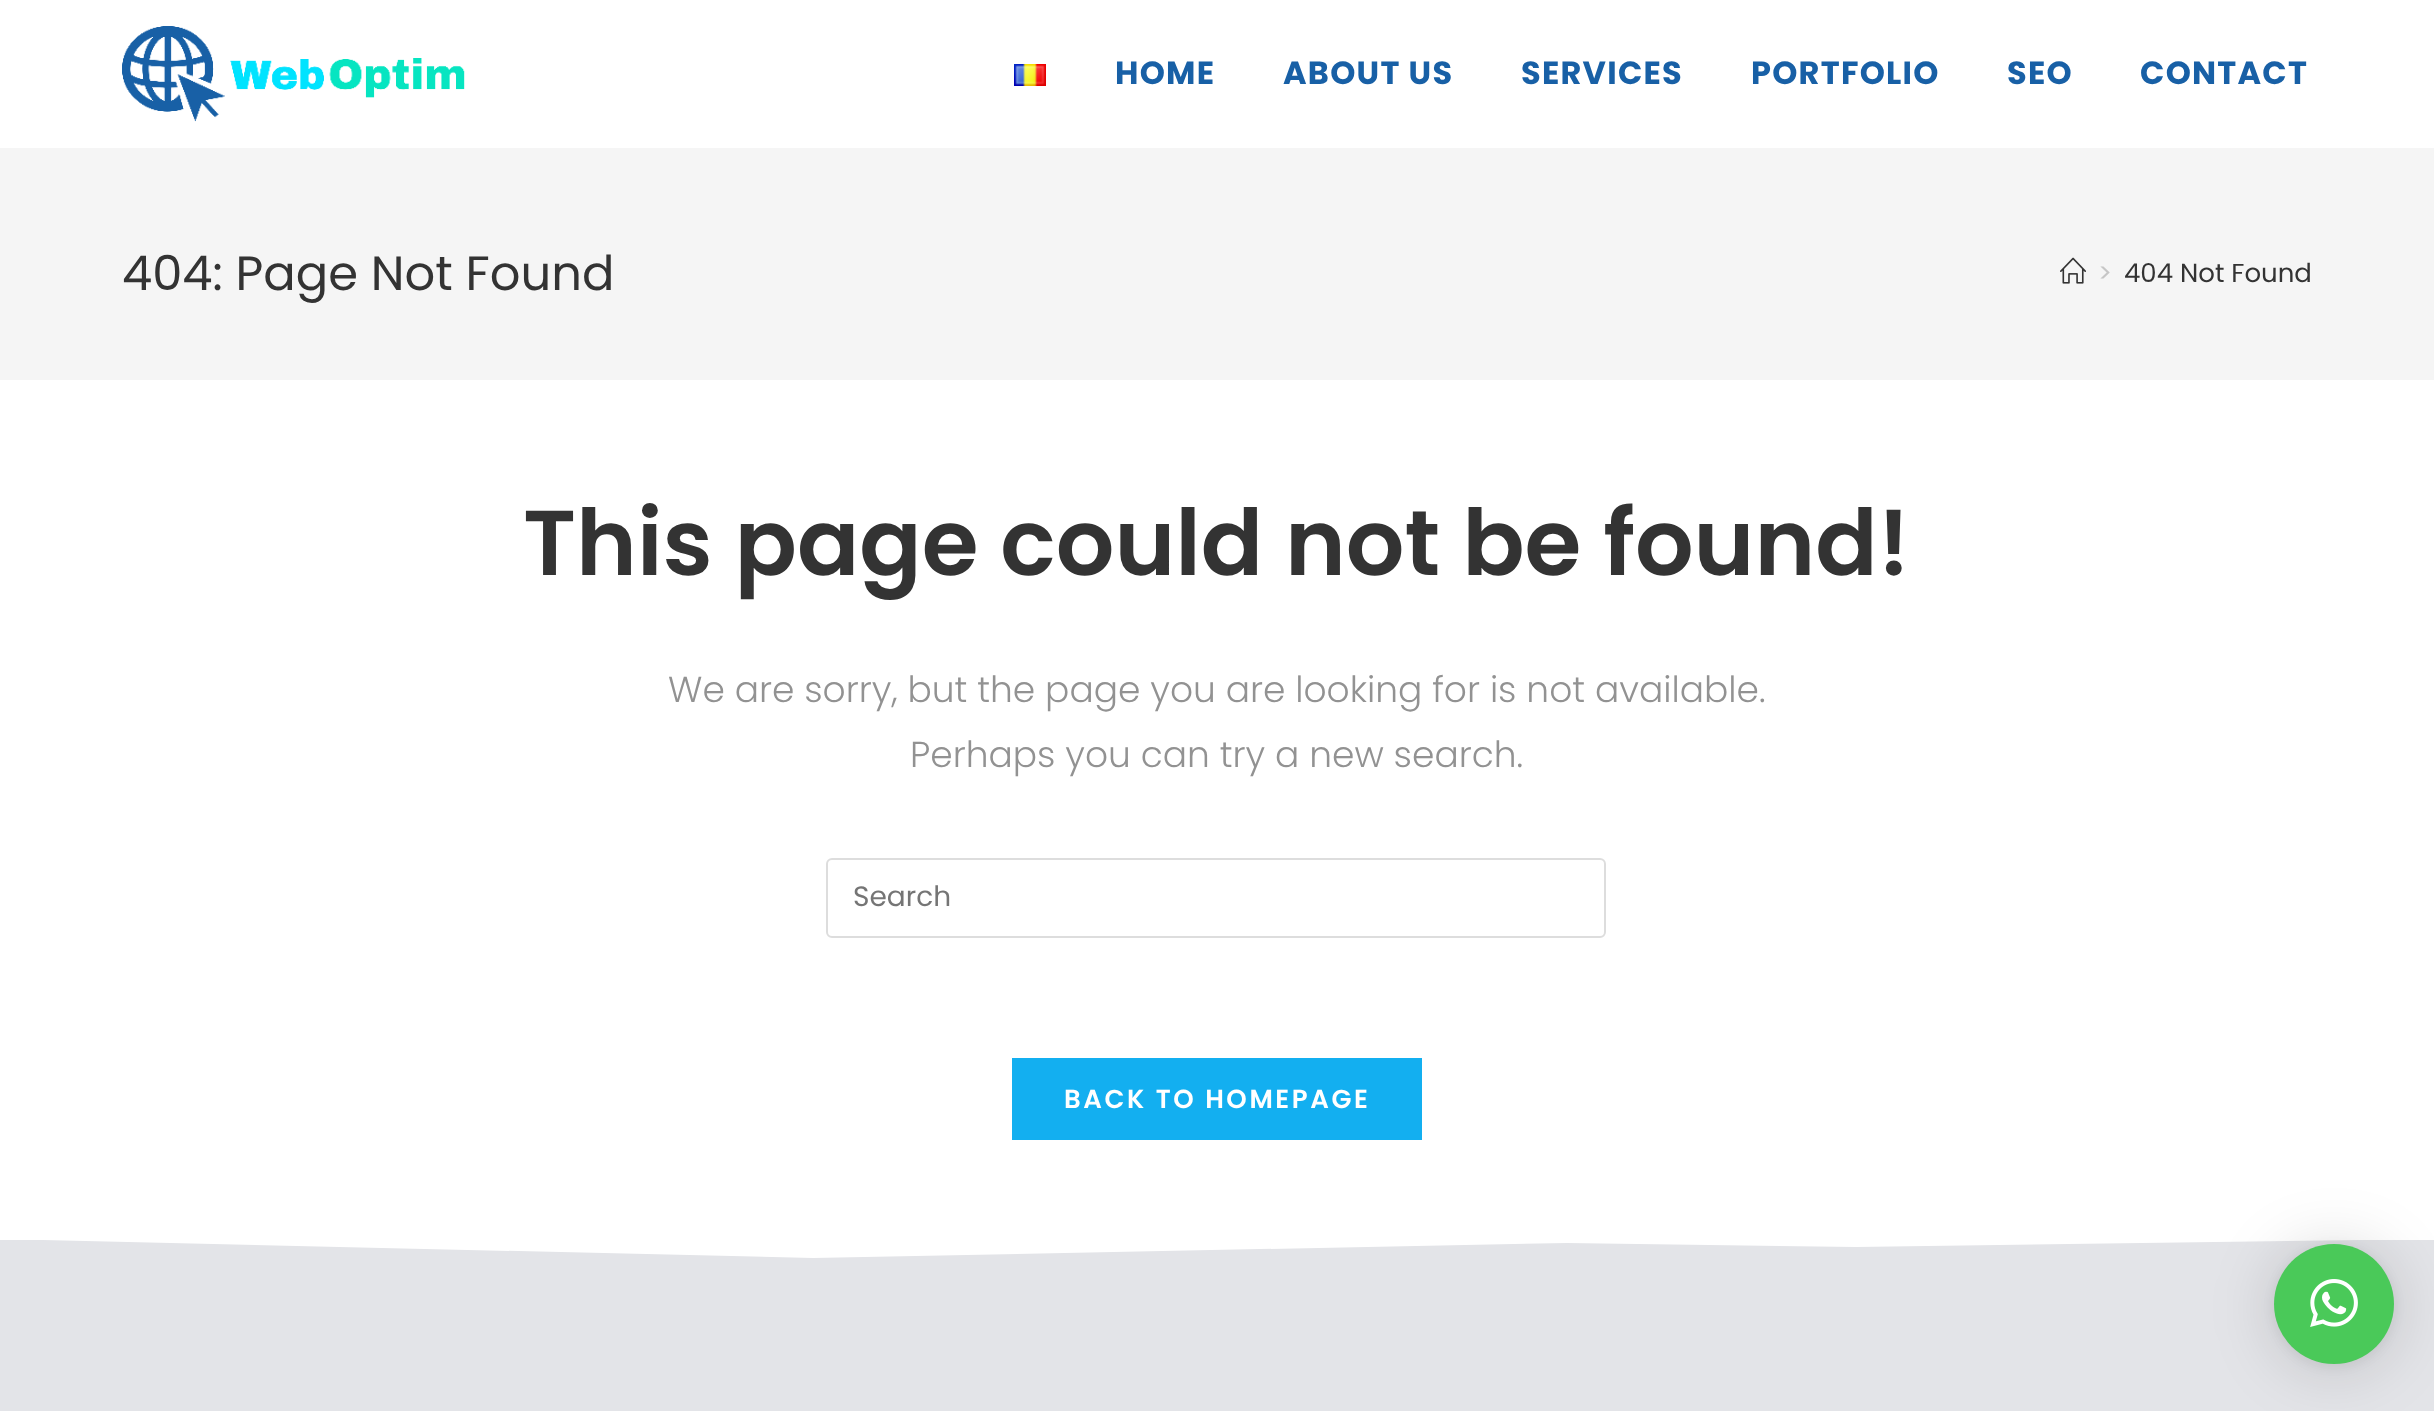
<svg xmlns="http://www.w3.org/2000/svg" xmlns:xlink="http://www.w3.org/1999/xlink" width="2434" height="1411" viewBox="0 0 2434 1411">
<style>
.cls-1{font:bold 32px Poppins;letter-spacing:1.25px;fill:#1860a6}
.cls-2{font:48px Poppins;fill:#333333}
.cls-3{font:26px Poppins;fill:#c6c6c6}
.cls-4{font:26px Poppins;fill:#333333}
.cls-5{font:600 92px Poppins;fill:#333333}
.cls-6{font:300 36px Poppins;fill:#929292}
.cls-7{font:28px Poppins;fill:#757575}
.cls-8{font:600 26px Poppins;letter-spacing:2.6px;fill:#ffffff}
</style>
<rect width="100%" height="100%" fill="#ffffff"/>
<image xlink:href="image0.png" x="122" y="26" width="343" height="96"/>
<image xlink:href="image1.png" x="1014" y="64" width="32" height="22"/>
<rect fill="#f5f5f5" x="0" y="148" width="2434" height="232"/>
<image xlink:href="image2.png" x="2060" y="257" width="26" height="27"/>
<rect fill="none" stroke="#dddddd" stroke-width="2" x="827" y="859" width="778" height="78" rx="5"/>
<rect fill="#13aff0" x="1012" y="1058" width="410" height="82"/>
<rect fill="#e3e4e8" x="0" y="1240" width="2434" height="171"/>
<path fill="#ffffff" d="M1856 1247L1567 1243L813 1258L0 1239V1238H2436V1239"/>
<rect fill="#000000" fill-opacity="0.16" filter="blur(32px)" x="2274" y="1248" width="120" height="120" rx="60"/>
<rect fill="#000000" fill-opacity="0.06" filter="blur(6px)" x="2274" y="1246" width="120" height="120" rx="60"/>
<circle fill="#4ac959" cx="2334" cy="1304" r="60"/>
<image xlink:href="image3.png" x="2310" y="1279" width="48" height="48"/>
<text class="cls-1" x="1115" y="84">HOME</text>
<text class="cls-1" x="1283" y="84">ABOUT US</text>
<text class="cls-1" x="1521" y="84">SERVICES</text>
<text class="cls-1" x="1751" y="84">PORTFOLIO</text>
<text class="cls-1" x="2007" y="84">SEO</text>
<text class="cls-1" x="2140" y="84">CONTACT</text>
<text class="cls-2" x="122" y="290">404: Page Not Found</text>
<text class="cls-3" x="2098" y="282">&gt;</text>
<text class="cls-4" x="2124" y="282">404 Not Found</text>
<text class="cls-5" x="523" y="575">This page could not be found!</text>
<text class="cls-6" x="668" y="702">We are sorry, but the page you are looking for is not available.</text>
<text class="cls-6" x="910" y="767">Perhaps you can try a new search.</text>
<text class="cls-7" x="853" y="906">Search</text>
<text class="cls-8" x="1064" y="1108">BACK TO HOMEPAGE</text>
</svg>
